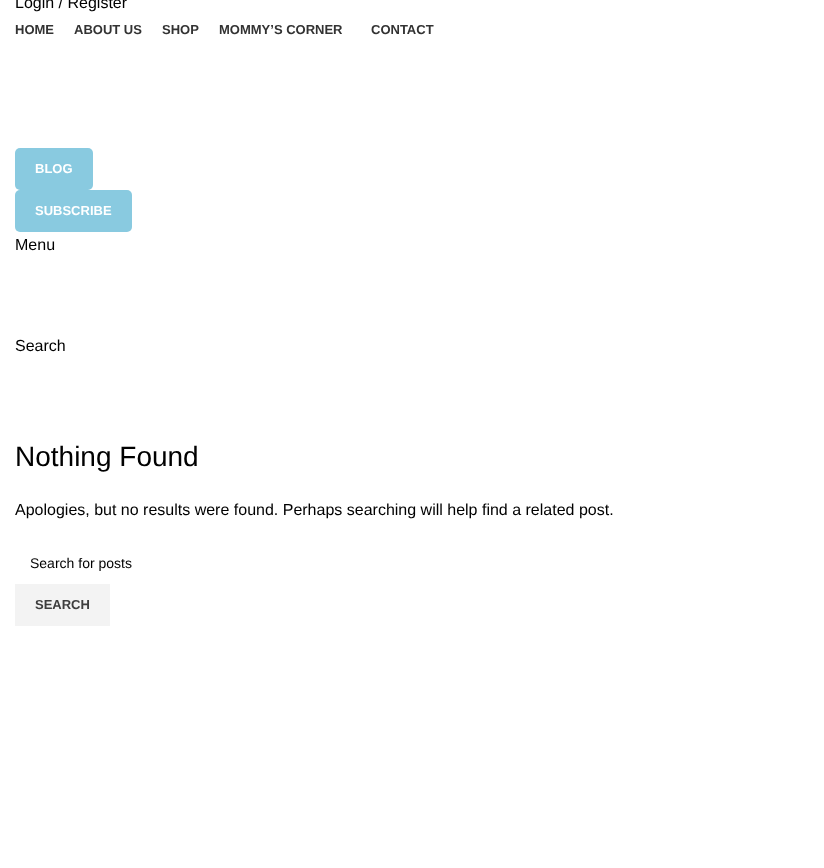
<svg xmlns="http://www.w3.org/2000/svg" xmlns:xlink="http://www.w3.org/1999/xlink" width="824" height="868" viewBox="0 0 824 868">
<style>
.cls-1{font:16px Liberation Sans;fill:#000000}
.cls-2{font:bold 13px Liberation Sans;fill:#333333}
.cls-3{font:bold 13px Liberation Sans;fill:#ffffff}
.cls-4{font:28px Liberation Sans;fill:#000000}
.cls-5{font:14px Liberation Sans;fill:#000000}
.cls-6{font:bold 13px Liberation Sans;fill:#3e3e3e}
</style>
<rect width="100%" height="100%" fill="#ffffff"/>
<rect fill="#89cae0" x="15" y="148" width="78" height="42" rx="5"/>
<rect fill="#89cae0" x="15" y="190" width="117" height="42" rx="5"/>
<rect fill="#f3f3f3" x="15" y="584" width="95" height="42"/>
<text class="cls-1" x="15" y="8">Login / Register</text>
<text class="cls-2" x="15" y="34">HOME</text>
<text class="cls-2" x="74" y="34">ABOUT US</text>
<text class="cls-2" x="162" y="34">SHOP</text>
<text class="cls-2" x="219" y="34">MOMMY’S CORNER</text>
<text class="cls-2" x="371" y="34">CONTACT</text>
<text class="cls-3" x="35" y="173">BLOG</text>
<text class="cls-3" x="35" y="215">SUBSCRIBE</text>
<text class="cls-1" x="15" y="250">Menu</text>
<text class="cls-1" x="15" y="351">Search</text>
<text class="cls-4" x="15" y="466">Nothing Found</text>
<text class="cls-1" x="15" y="515">Apologies, but no results were found. Perhaps searching will help find a related post.</text>
<text class="cls-5" x="30" y="568">Search for posts</text>
<text class="cls-6" x="35" y="609">SEARCH</text>
</svg>
